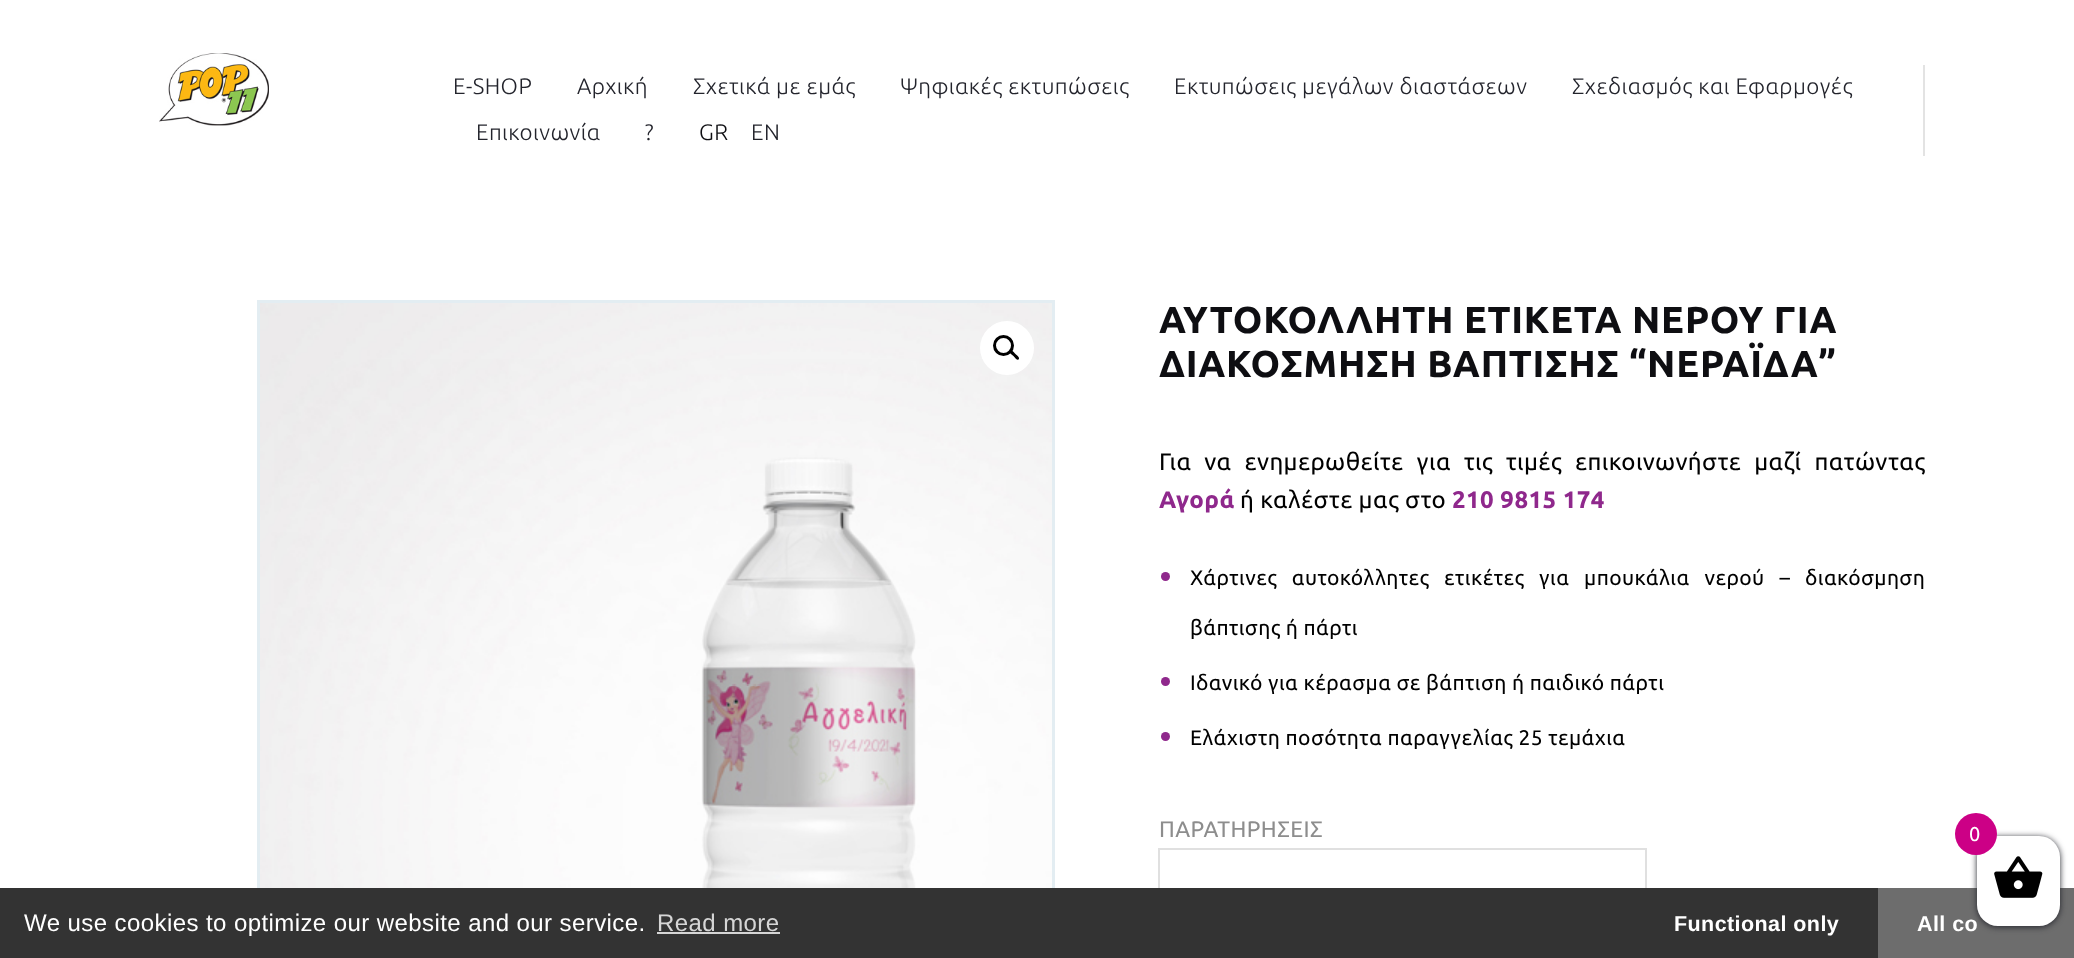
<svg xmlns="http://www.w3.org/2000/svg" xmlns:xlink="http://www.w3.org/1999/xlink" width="2074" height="958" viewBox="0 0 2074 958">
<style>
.cls-1{font:300 22.4px Ubuntu;letter-spacing:0.45px;fill:#23242c}
.cls-2{font:300 22.4px Ubuntu;letter-spacing:0.45px;fill:#0e0e12}
.cls-3{font:bold 37.5px Ubuntu;letter-spacing:0.75px;fill:#0e0e12}
.cls-4{font:24px Ubuntu;letter-spacing:0.42px;fill:#000000}
.cls-5{font:bold 24px Ubuntu;letter-spacing:0.42px;fill:#8f288c}
.cls-6{font:21px Ubuntu;letter-spacing:0.42px;fill:#000000}
.cls-7{font:22.5px Ubuntu;letter-spacing:0.42px;fill:#8d8d8d}
.cls-8{font:20px Ubuntu;letter-spacing:0.42px;fill:#ffffff}
.cls-9{font:24px Liberation Sans;letter-spacing:0.42px;fill:#ffffff}
.cls-10{font:24px Liberation Sans;letter-spacing:0.42px;fill:#d6d6d6}
.cls-11{font:bold 21.5px Liberation Sans;letter-spacing:0.42px;fill:#ffffff}
</style>
<rect width="100%" height="100%" fill="#ffffff"/>
<image xlink:href="image0.png" x="159" y="53" width="110" height="73"/>
<rect fill="#e3e3e3" x="1923" y="65" width="2" height="91"/>
<rect fill="none" stroke="#e3edf2" stroke-width="3" x="258.5" y="301.5" width="795" height="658"/>
<image xlink:href="image1.png" x="260" y="303" width="792" height="585"/>
<circle fill="#ffffff" cx="1007" cy="348" r="27"/>
<circle fill="none" stroke="#000000" stroke-width="3" cx="1003.5" cy="345.5" r="9"/>
<path fill="#000000" d="M1010 351C1012 349 1014.5 353 1015.5 354C1016.5 355 1020.5 357.5 1018.5 359.5C1017 361 1014.5 357 1013.5 356C1012.5 355.5 1008.5 352.5 1010 351Z"/>
<circle fill="#8f288c" cx="1165.5" cy="576.5" r="4.5"/>
<circle fill="#8f288c" cx="1165.5" cy="681.5" r="4.5"/>
<circle fill="#8f288c" cx="1165.5" cy="736.5" r="4.5"/>
<rect fill="none" stroke="#e0e0e0" stroke-width="2" x="1159" y="849" width="487" height="79"/>
<rect fill="#6d6d6d" x="1878" y="888" width="196" height="70"/>
<rect fill="#23242c" filter="blur(3px)" x="1977" y="837" width="83" height="90" rx="21"/>
<rect fill="#ffffff" x="1977" y="836" width="83" height="90" rx="21"/>
<circle fill="#cc0086" cx="1976" cy="834" r="21"/>
<image xlink:href="image2.png" x="1994" y="856" width="49" height="42"/>
<rect fill="#333333" x="0" y="888" width="1878" height="70"/>
<rect fill="#d6d6d6" x="657" y="932" width="123" height="2"/>
<text class="cls-1" x="453" y="94">E-SHOP</text>
<text class="cls-1" x="577" y="94">Αρχική</text>
<text class="cls-1" x="693" y="94">Σχετικά με εμάς</text>
<text class="cls-1" x="900" y="94">Ψηφιακές εκτυπώσεις</text>
<text class="cls-1" x="1174" y="94">Εκτυπώσεις μεγάλων διαστάσεων</text>
<text class="cls-1" x="1572" y="94">Σχεδιασμός και Εφαρμογές</text>
<text class="cls-1" x="476" y="140">Επικοινωνία</text>
<text class="cls-1" x="645" y="140">?</text>
<text class="cls-2" x="699" y="140">GR</text>
<text class="cls-1" x="751" y="140">EN</text>
<text class="cls-3"><tspan x="1159" y="333">ΑΥΤΟΚΟΛΛΗΤΗ ΕΤΙΚΕΤΑ ΝΕΡΟΥ ΓΙΑ</tspan><tspan x="1159" y="377">ΔΙΑΚΟΣΜΗΣΗ ΒΑΠΤΙΣΗΣ “ΝΕΡΑΪΔΑ”</tspan></text>
<text class="cls-4" x="1159" y="470" word-spacing="7">Για να ενημερωθείτε για τις τιμές επικοινωνήστε μαζί πατώντας</text>
<text class="cls-5" x="1159" y="508">Αγορά</text>
<text class="cls-4" x="1240" y="508">ή καλέστε μας στο</text>
<text class="cls-5" x="1452" y="508">210 9815 174</text>
<text class="cls-6" x="1190" y="585" word-spacing="9.5">Χάρτινες αυτοκόλλητες ετικέτες για μπουκάλια νερού – διακόσμηση</text>
<text class="cls-6" x="1190" y="635">βάπτισης ή πάρτι</text>
<text class="cls-6" x="1190" y="690">Ιδανικό για κέρασμα σε βάπτιση ή παιδικό πάρτι</text>
<text class="cls-6" x="1190" y="745">Ελάχιστη ποσότητα παραγγελίας 25 τεμάχια</text>
<text class="cls-7" x="1159" y="837">ΠΑΡΑΤΗΡΗΣΕΙΣ</text>
<text class="cls-8" x="1969" y="841">0</text>
<text class="cls-9" x="24" y="931">We use cookies to optimize our website and our service.</text>
<text class="cls-10" x="657" y="931">Read more</text>
<text class="cls-11" x="1674" y="931">Functional only</text>
<text class="cls-11" x="1917" y="931">All co</text>
</svg>
